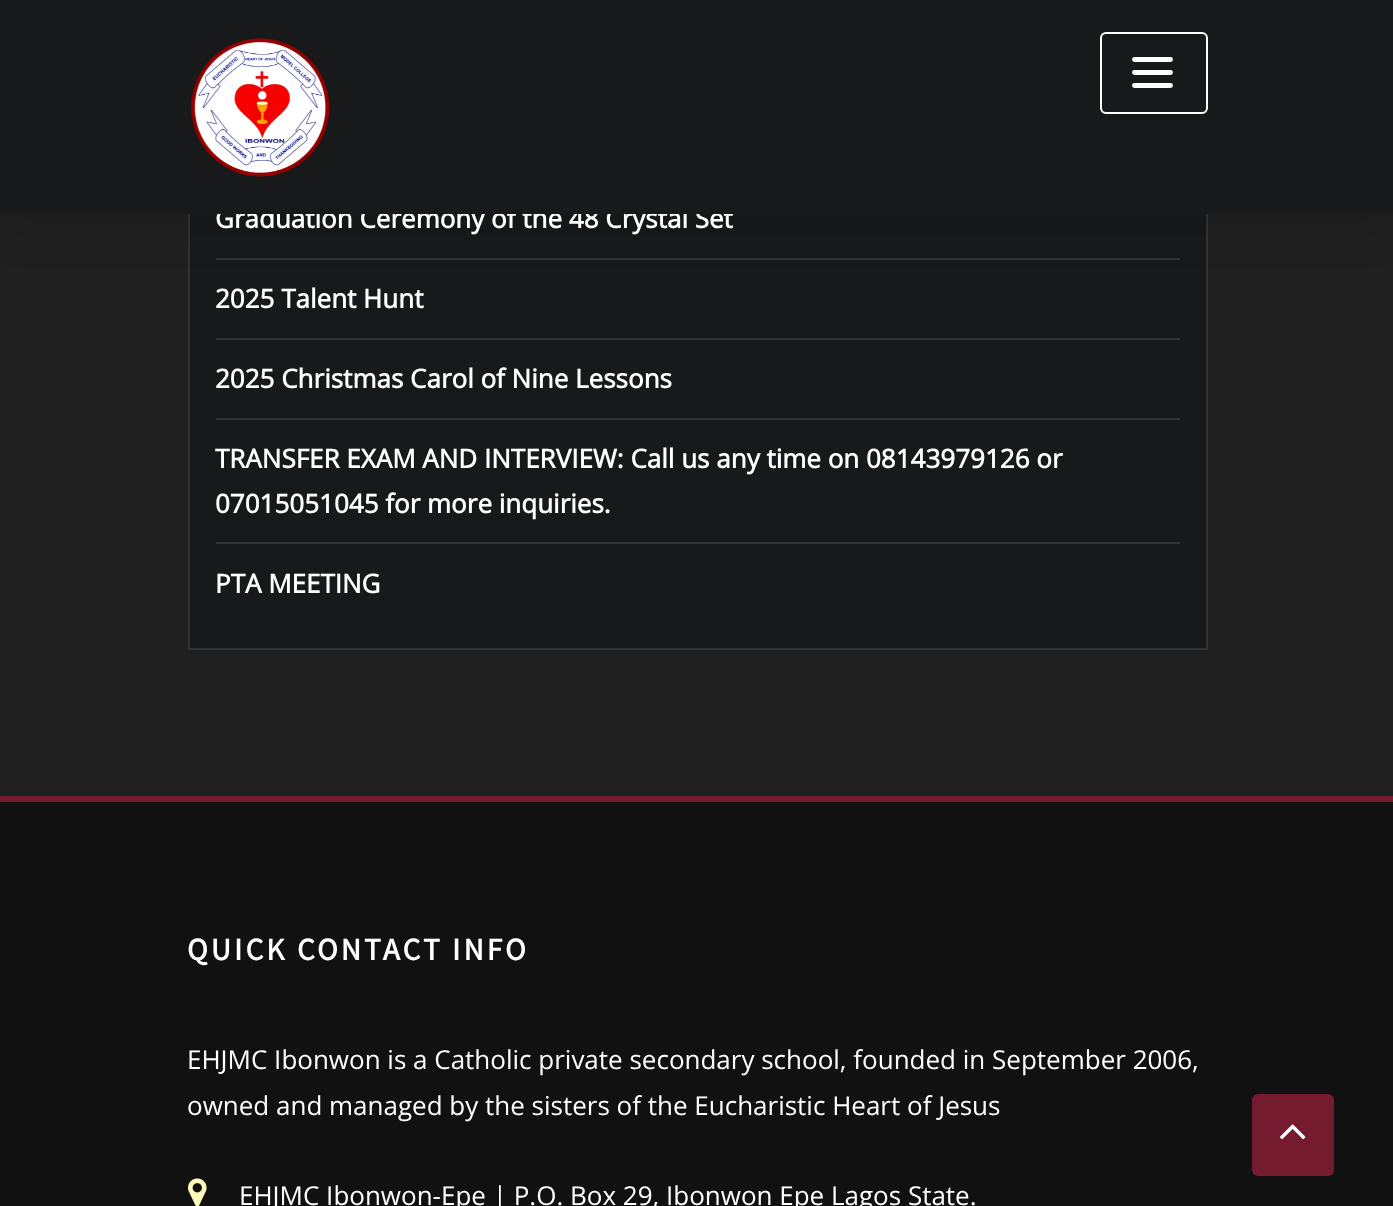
<svg xmlns="http://www.w3.org/2000/svg" xmlns:xlink="http://www.w3.org/1999/xlink" width="1393" height="1206" viewBox="0 0 1393 1206">
<style>
.cls-1{font:bold 26px Open Sans;fill:#ffffff}
.cls-2{font:bold 31.25px Source Sans Pro;letter-spacing:3.1px;fill:#ffffff}
.cls-3{font:26px Open Sans;fill:#ffffff}
</style>
<rect width="100%" height="100%" fill="#202020"/>
<rect fill="#18191b" x="190" y="214" width="1016" height="434"/>
<rect fill="none" stroke="#333333" stroke-width="2" x="189" y="71" width="1018" height="578"/>
<rect fill="#333333" x="216" y="258" width="964" height="2"/>
<rect fill="#000000" fill-opacity="0.1" filter="blur(20px)" x="0" y="16" width="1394" height="214"/>
<rect fill="#333333" x="216" y="338" width="964" height="2"/>
<rect fill="#333333" x="216" y="418" width="964" height="2"/>
<rect fill="#333333" x="216" y="542" width="964" height="2"/>
<rect fill="#111111" x="0" y="802" width="1393" height="404"/>
<rect fill="#741b2f" x="0" y="796" width="1393" height="6"/>
<image xlink:href="image1.png" x="188" y="1178" width="19" height="28"/>
<rect fill="#741b2f" x="1252" y="1094" width="82" height="82" rx="6"/>
<image xlink:href="image2.png" x="1280" y="1124" width="26" height="16"/>
<text class="cls-1" x="215" y="228">Graduation Ceremony of the 48 Crystal Set</text>
<rect fill="#18191b" x="0" y="0" width="1393" height="214"/>
<image xlink:href="image0.png" x="190" y="38" width="140" height="139"/>
<rect fill="none" stroke="#ffffff" stroke-width="2" x="1101" y="33" width="106" height="80" rx="5"/>
<path fill="none" stroke="#ffffff" stroke-width="4.9" stroke-linecap="round" d="M1134.5 59.5H1170.5M1134.5 72.5H1170.5M1134.5 85.5H1170.5"/>
<text class="cls-1" x="215" y="308">2025 Talent Hunt</text>
<text class="cls-1" x="215" y="388">2025 Christmas Carol of Nine Lessons</text>
<text class="cls-1"><tspan x="215" y="468">TRANSFER EXAM AND INTERVIEW: Call us any time on 08143979126 or</tspan><tspan x="215" y="513">07015051045 for more inquiries.</tspan></text>
<text class="cls-1" x="215" y="593">PTA MEETING</text>
<text class="cls-2" x="187" y="960">QUICK CONTACT INFO</text>
<text class="cls-3"><tspan x="187" y="1069">EHJMC Ibonwon is a Catholic private secondary school, founded in September 2006,</tspan><tspan x="187" y="1115">owned and managed by the sisters of the Eucharistic Heart of Jesus</tspan></text>
<text class="cls-3" x="239" y="1205">EHJMC Ibonwon-Epe | P.O. Box 29, Ibonwon Epe Lagos State.</text>
</svg>
